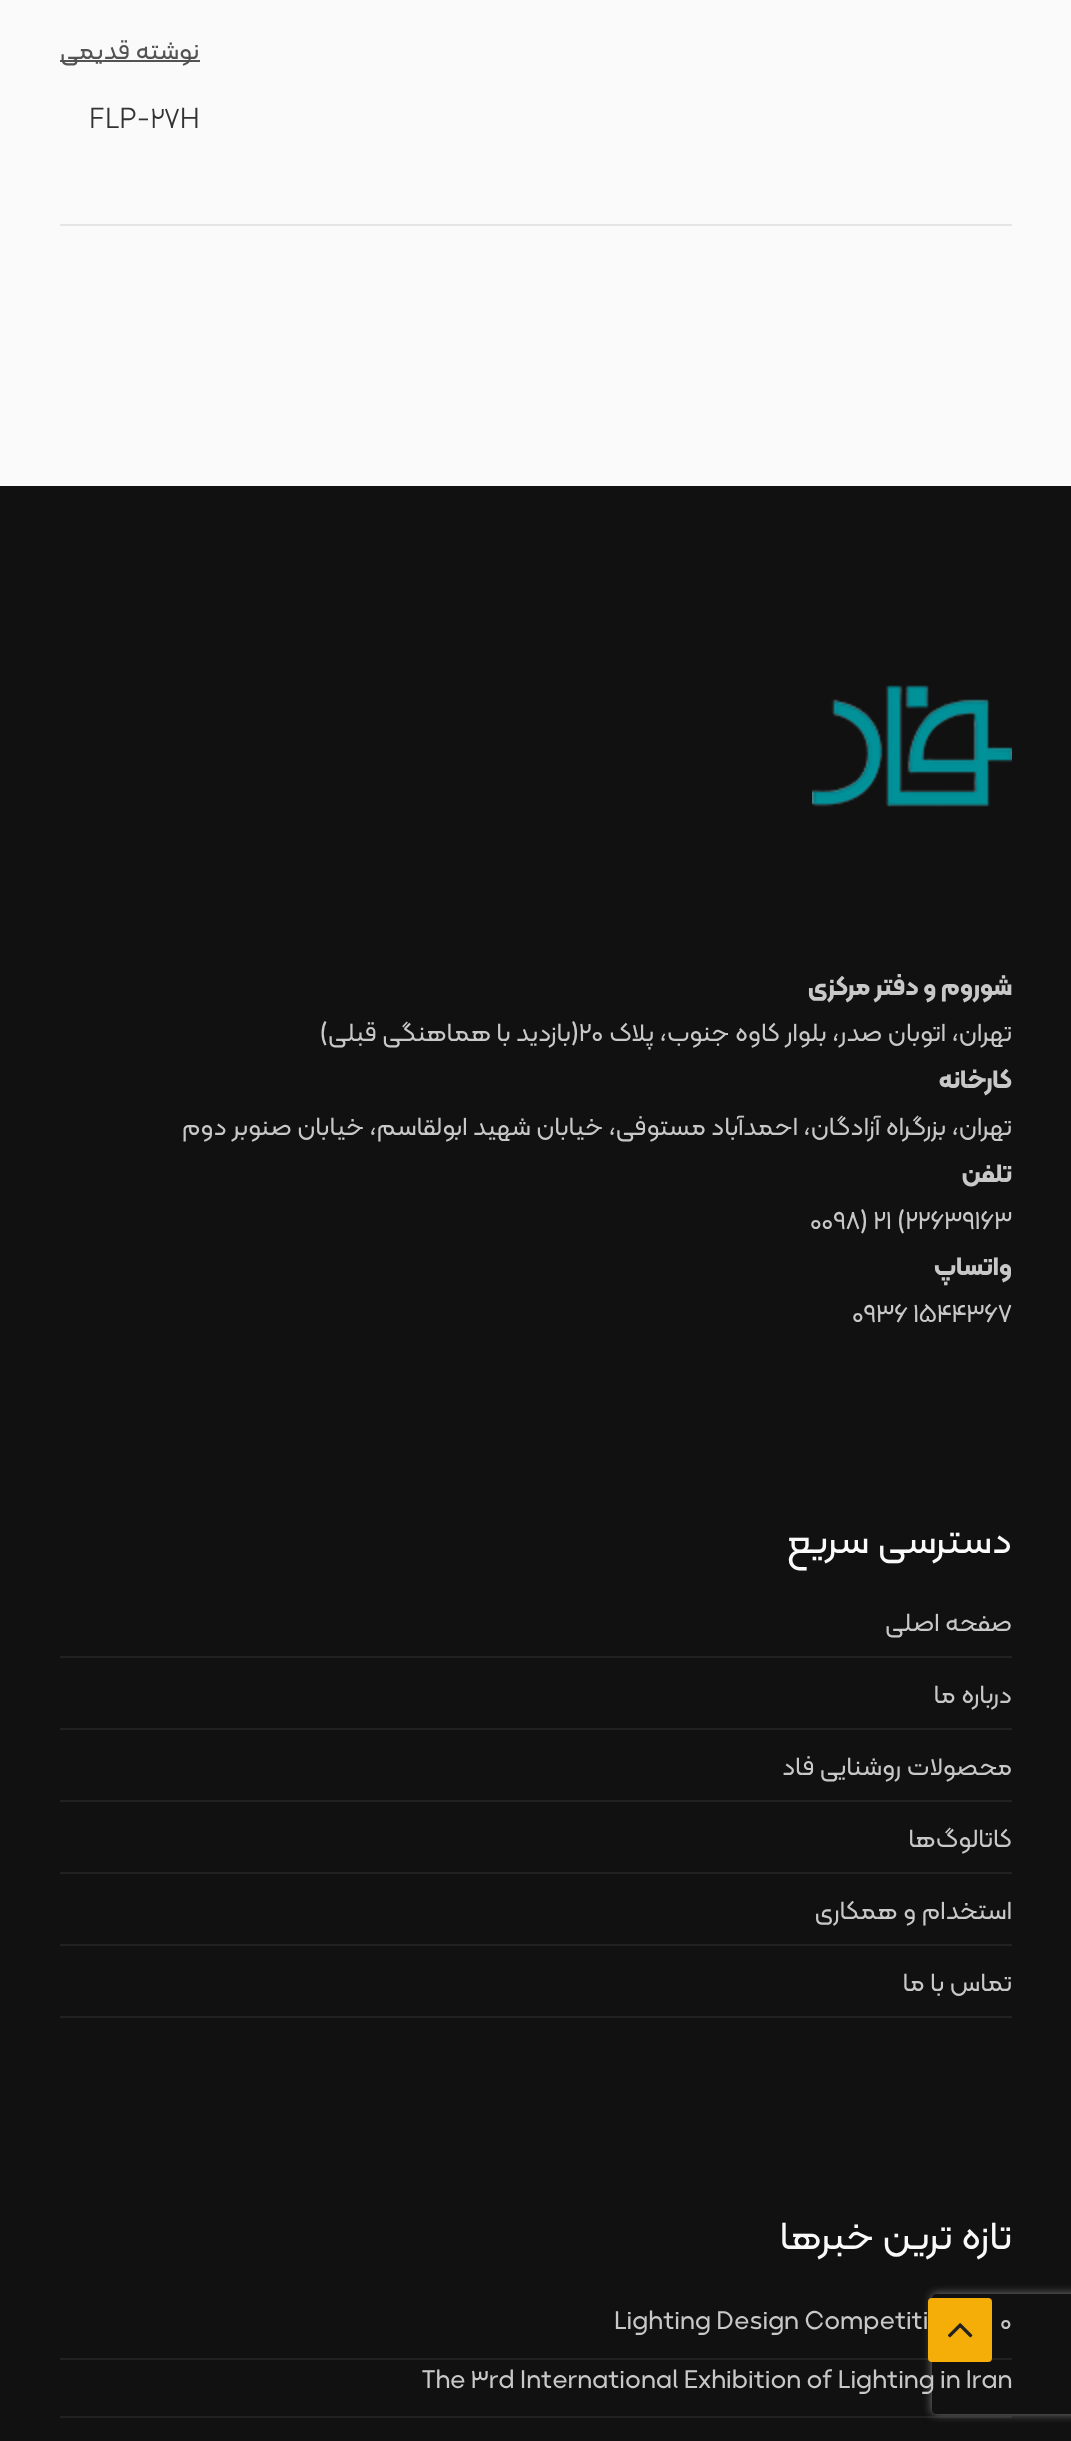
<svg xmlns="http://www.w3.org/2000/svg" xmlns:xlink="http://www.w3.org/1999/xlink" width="1071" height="2441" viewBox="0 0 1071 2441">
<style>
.cls-1{font:26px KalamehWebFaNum;direction:rtl;fill:#535353}
.cls-2{font:300 30px KalamehWebFaNum;fill:#323232}
.cls-3{font:bold 26px KalamehWebFaNum;direction:rtl;fill:#c8c8c8}
.cls-4{font:26px KalamehWebFaNum;direction:rtl;fill:#c8c8c8}
.cls-5{font:26px KalamehWebFaNum;fill:#c8c8c8}
.cls-6{font:40px KalamehWebFaNum;direction:rtl;fill:#fafafa}
</style>
<defs>
<clipPath id="clip1"><path d="M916 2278H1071V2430H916ZM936 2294H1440C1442 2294 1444 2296 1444 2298V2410C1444 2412 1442 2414 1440 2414H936C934 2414 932 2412 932 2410V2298C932 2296 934 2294 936 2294Z" clip-rule="evenodd"/></clipPath>
</defs>
<rect width="100%" height="100%" fill="#fafafa"/>
<rect fill="#e3e5e7" x="60" y="224" width="952" height="2"/>
<rect fill="#535353" x="60" y="60" width="140" height="2"/>
<rect fill="#111111" x="0" y="486" width="1071" height="1955"/>
<image xlink:href="image0.png" x="812" y="685" width="200" height="122"/>
<rect fill="#212121" x="60" y="1656" width="952" height="2"/>
<rect fill="#212121" x="60" y="1728" width="952" height="2"/>
<rect fill="#212121" x="60" y="1800" width="952" height="2"/>
<rect fill="#212121" x="60" y="1872" width="952" height="2"/>
<rect fill="#212121" x="60" y="1944" width="952" height="2"/>
<rect fill="#212121" x="60" y="2016" width="952" height="2"/>
<rect fill="#212121" x="60" y="2358" width="952" height="2"/>
<rect fill="#212121" x="60" y="2416" width="952" height="2"/>
<g clip-path="url(#clip1)">
<rect fill="#7d7d7d" filter="blur(5px)" x="932" y="2294" width="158" height="120" rx="4"/>
</g>
<rect fill="#f5ae07" x="928" y="2298" width="64" height="64" rx="4"/>
<image xlink:href="image1.png" x="947" y="2323" width="26" height="15"/>
<text class="cls-1" x="199" y="59">نوشته قدیمی</text>
<text class="cls-2" x="89" y="128">FLP-27H</text>
<text class="cls-3" x="1012" y="995">شوروم و دفتر مرکزی</text>
<text class="cls-4" x="1012" y="1041">تهران، اتوبان صدر، بلوار کاوه جنوب، پلاک</text>
<text class="cls-5" x="579" y="1041">۲۰</text>
<text class="cls-4" x="579" y="1041">(بازدید با هماهنگی قبلی)</text>
<text class="cls-3" x="1012" y="1088">کارخانه</text>
<text class="cls-4" x="1012" y="1135">تهران، بزرگراه آزادگان، احمدآباد مستوفی، خیابان شهید ابولقاسم، خیابان صنوبر دوم</text>
<text class="cls-3" x="1012" y="1182">تلفن</text>
<text class="cls-5" x="810" y="1229">۰۰۹۸) ۲۱ (۲۲۶۳۹۱۶۳</text>
<text class="cls-3" x="1012" y="1275">واتساپ</text>
<text class="cls-5" x="852" y="1322">۰۹۳۶ ۱۵۴۴۳۶۷</text>
<text class="cls-6" x="1012" y="1553">دسترسی سریع</text>
<text class="cls-4" x="1012" y="1631">صفحه اصلی</text>
<text class="cls-4" x="1012" y="1703">درباره ما</text>
<text class="cls-4" x="1012" y="1775">محصولات روشنایی فاد</text>
<text class="cls-4" x="1012" y="1847">کاتالوگ‌ها</text>
<text class="cls-4" x="1012" y="1919">استخدام و همکاری</text>
<text class="cls-4" x="1012" y="1991">تماس با ما</text>
<text class="cls-6" x="1012" y="2249">تازه ترین خبرها</text>
<text class="cls-5" x="1000" y="2329">0</text>
<text class="cls-5" x="614" y="2329">Lighting Design Competiti</text>
<text class="cls-5" x="422" y="2388">The 3rd International Exhibition of Lighting in Iran</text>
</svg>
